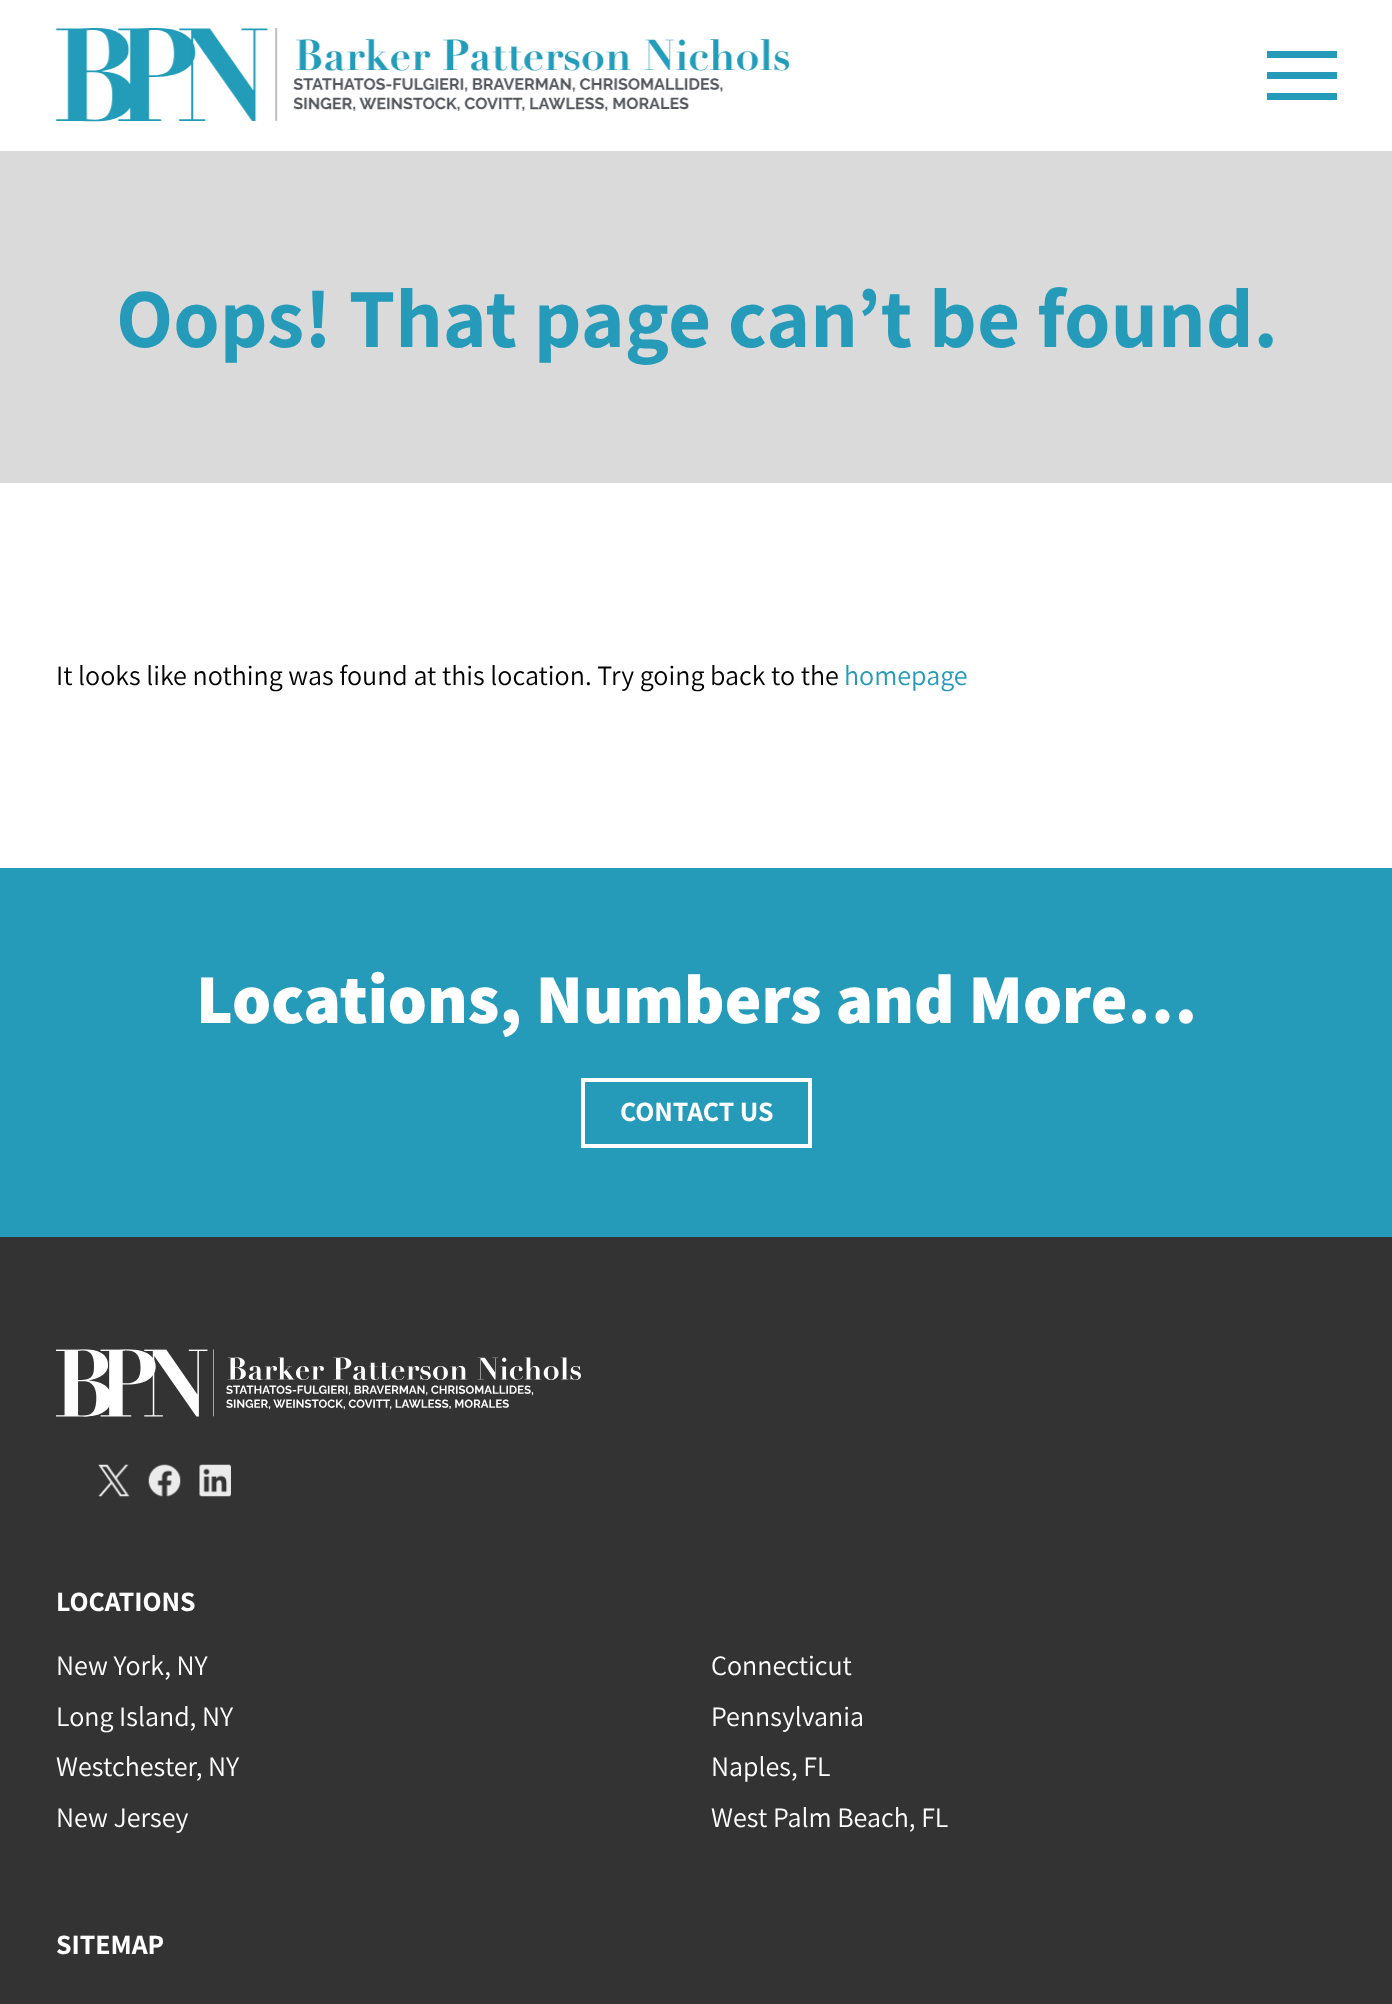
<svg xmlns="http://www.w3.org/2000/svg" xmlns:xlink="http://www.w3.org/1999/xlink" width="1392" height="2004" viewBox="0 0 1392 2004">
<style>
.cls-1{font:bold 84px Assistant;fill:#259bb9}
.cls-2{font:28px Assistant;fill:#000000}
.cls-3{font:28px Assistant;fill:#259bb9}
.cls-4{font:800 70px Assistant;fill:#ffffff}
.cls-5{font:bold 28px Assistant;fill:#ffffff}
.cls-6{font:28px Assistant;fill:#ffffff}
</style>
<rect width="100%" height="100%" fill="#ffffff"/>
<image xlink:href="image0.png" x="56" y="28" width="733" height="94"/>
<rect fill="#259bb9" x="1267" y="72" width="70" height="7"/>
<rect fill="#259bb9" x="1267" y="51" width="70" height="7"/>
<rect fill="#259bb9" x="1267" y="93" width="70" height="7"/>
<rect fill="#dadada" x="0" y="151" width="1392" height="332"/>
<rect fill="#259bb9" x="0" y="868" width="1392" height="369"/>
<rect fill="none" stroke="#ffffff" stroke-width="4" x="583" y="1080" width="227" height="66"/>
<rect fill="#333333" x="0" y="1237" width="1392" height="767"/>
<image xlink:href="image1.png" x="56" y="1349" width="525" height="68"/>
<image xlink:href="image2.png" x="98" y="1464" width="32" height="33"/>
<image xlink:href="image3.png" x="148" y="1464" width="33" height="33"/>
<image xlink:href="image4.png" x="199" y="1464" width="32" height="33"/>
<text class="cls-1" x="116" y="347">Oops! That page can’t be found.</text>
<text class="cls-2" x="56" y="685">It looks like nothing was found at this location. Try going back to the</text>
<text class="cls-3" x="844" y="685">homepage</text>
<text class="cls-4" x="196" y="1023">Locations, Numbers and More…</text>
<text class="cls-5" x="620" y="1121">CONTACT US</text>
<text class="cls-5" x="56" y="1611">LOCATIONS</text>
<text class="cls-6" x="56" y="1675">New York, NY</text>
<text class="cls-6" x="711" y="1675">Connecticut</text>
<text class="cls-6" x="56" y="1726">Long Island, NY</text>
<text class="cls-6" x="711" y="1726">Pennsylvania</text>
<text class="cls-6" x="56" y="1776">Westchester, NY</text>
<text class="cls-6" x="711" y="1776">Naples, FL</text>
<text class="cls-6" x="56" y="1827">New Jersey</text>
<text class="cls-6" x="711" y="1827">West Palm Beach, FL</text>
<text class="cls-5" x="56" y="1954">SITEMAP</text>
</svg>
